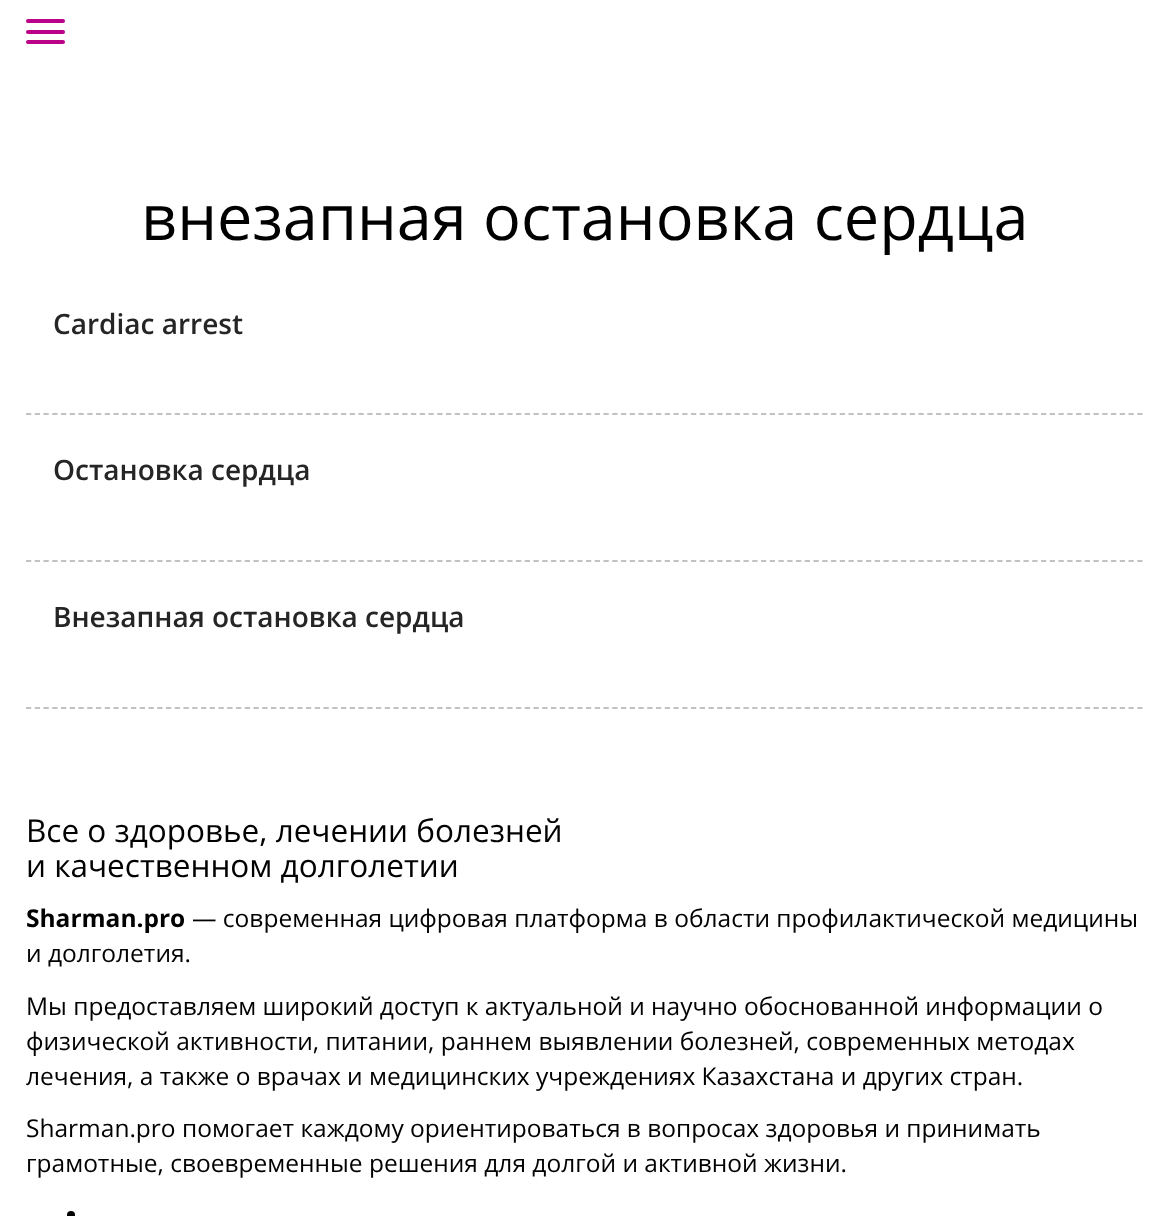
<svg xmlns="http://www.w3.org/2000/svg" xmlns:xlink="http://www.w3.org/1999/xlink" width="1168" height="1216" viewBox="0 0 1168 1216">
<style>
.cls-1{font:63px Open Sans;fill:#000000}
.cls-2{font:600 28px Open Sans;fill:#252525}
.cls-3{font:31.5px Open Sans;fill:#000000}
.cls-4{font:bold 24.5px Open Sans;fill:#000000}
.cls-5{font:24.5px Open Sans;fill:#000000}
</style>
<rect width="100%" height="100%" fill="#ffffff"/>
<rect fill="#ba0388" x="26" y="19" width="39" height="4" rx="2"/>
<rect fill="#ba0388" x="26" y="30" width="39" height="4" rx="2"/>
<rect fill="#ba0388" x="26" y="40" width="39" height="4" rx="2"/>
<path fill="none" stroke="#c2c2c2" stroke-width="1.8" stroke-dasharray="5.25 3.5" d="M26 414H1143"/>
<path fill="none" stroke="#c2c2c2" stroke-width="1.8" stroke-dasharray="5.25 3.5" d="M26 561H1143"/>
<path fill="none" stroke="#c2c2c2" stroke-width="1.8" stroke-dasharray="5.25 3.5" d="M26 708H1143"/>
<rect fill="#000000" x="67" y="1211" width="8" height="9" rx="4"/>
<text class="cls-1" x="141" y="240">внезапная остановка сердца</text>
<text class="cls-2" x="53" y="334">Cardiac arrest</text>
<text class="cls-2" x="53" y="480">Остановка сердца</text>
<text class="cls-2" x="53" y="627">Внезапная остановка сердца</text>
<text class="cls-3"><tspan x="26" y="842">Все о здоровье, лечении болезней</tspan><tspan x="26" y="877">и качественном долголетии</tspan></text>
<text class="cls-4" x="26" y="927">Sharman.pro</text>
<text class="cls-5" x="192" y="927">— современная цифровая платформа в области профилактической медицины</text>
<text class="cls-5" x="26" y="962">и долголетия.</text>
<text class="cls-5"><tspan x="26" y="1015">Мы предоставляем широкий доступ к актуальной и научно обоснованной информации о</tspan><tspan x="26" y="1050">физической активности, питании, раннем выявлении болезней, современных методах</tspan><tspan x="26" y="1085">лечения, а также о врачах и медицинских учреждениях Казахстана и других стран.</tspan></text>
<text class="cls-5"><tspan x="26" y="1137">Sharman.pro помогает каждому ориентироваться в вопросах здоровья и принимать</tspan><tspan x="26" y="1172">грамотные, своевременные решения для долгой и активной жизни.</tspan></text>
</svg>
